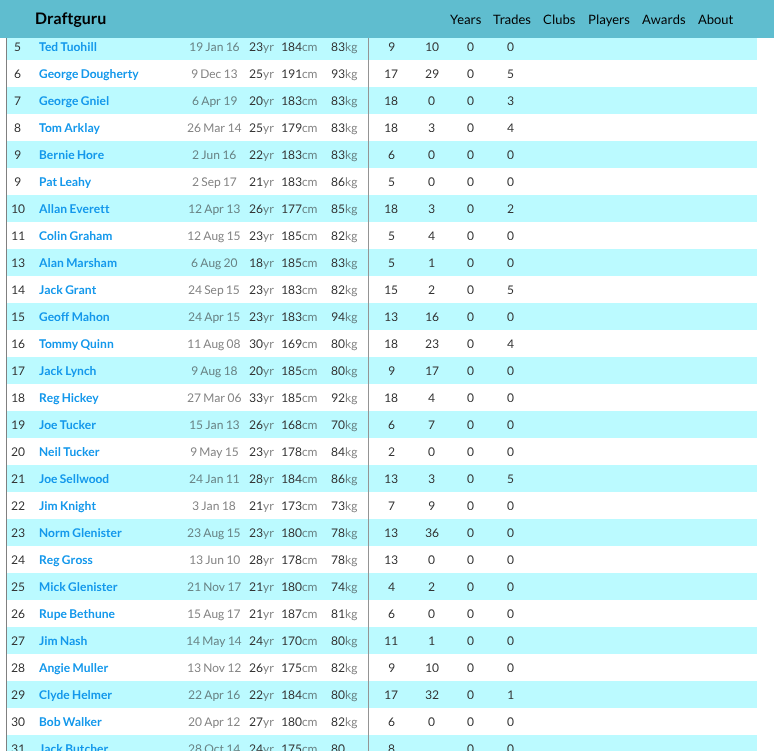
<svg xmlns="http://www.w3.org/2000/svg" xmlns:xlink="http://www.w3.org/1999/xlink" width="774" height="751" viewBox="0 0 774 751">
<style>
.cls-1{font:bold 16px Lato;fill:#000000}
.cls-2{font:13px Lato;fill:#000000}
.cls-3{font:12px Lato;fill:#333333}
.cls-4{font:bold 12px Lato;fill:#1498eb}
.cls-5{font:12px Lato;fill:#698385}
.cls-6{font:12px Lato;fill:#858585}
</style>
<rect width="100%" height="100%" fill="#ffffff"/>
<rect fill="#bbfaff" x="7" y="38" width="750" height="22"/>
<rect fill="#bbfaff" x="7" y="87" width="750" height="27"/>
<rect fill="#bbfaff" x="7" y="141" width="750" height="27"/>
<rect fill="#bbfaff" x="7" y="195" width="750" height="27"/>
<rect fill="#bbfaff" x="7" y="249" width="750" height="27"/>
<rect fill="#bbfaff" x="7" y="303" width="750" height="27"/>
<rect fill="#bbfaff" x="7" y="357" width="750" height="27"/>
<rect fill="#bbfaff" x="7" y="411" width="750" height="27"/>
<rect fill="#bbfaff" x="7" y="465" width="750" height="27"/>
<rect fill="#bbfaff" x="7" y="519" width="750" height="27"/>
<rect fill="#bbfaff" x="7" y="573" width="750" height="27"/>
<rect fill="#bbfaff" x="7" y="627" width="750" height="27"/>
<rect fill="#bbfaff" x="7" y="681" width="750" height="27"/>
<rect fill="#bbfaff" x="7" y="735" width="750" height="16"/>
<rect fill="#949494" x="368" y="33" width="1" height="718"/>
<rect fill="#5fbdcf" x="0" y="0" width="774" height="38"/>
<rect fill="#808080" x="6" y="38" width="1" height="713"/>
<text class="cls-1" x="35" y="24">Draftguru</text>
<text class="cls-2" x="450" y="24">Years</text>
<text class="cls-2" x="493" y="24">Trades</text>
<text class="cls-2" x="543" y="24">Clubs</text>
<text class="cls-2" x="588" y="24">Players</text>
<text class="cls-2" x="642" y="24">Awards</text>
<text class="cls-2" x="698" y="24">About</text>
<text class="cls-3" x="14" y="51">5</text>
<text class="cls-4" x="39" y="51">Ted Tuohill</text>
<text class="cls-5" x="189" y="51">19 Jan 16</text>
<text class="cls-3" x="249" y="51">23</text>
<text class="cls-5" x="263" y="51">yr</text>
<text class="cls-3" x="281" y="51">184</text>
<text class="cls-5" x="302" y="51">cm</text>
<text class="cls-3" x="331" y="51">83</text>
<text class="cls-5" x="345" y="51">kg</text>
<text class="cls-3" x="388" y="51">9</text>
<text class="cls-3" x="425" y="51">10</text>
<text class="cls-3" x="467" y="51">0</text>
<text class="cls-3" x="507" y="51">0</text>
<text class="cls-3" x="14" y="78">6</text>
<text class="cls-4" x="39" y="78">George Dougherty</text>
<text class="cls-6" x="191" y="78">9 Dec 13</text>
<text class="cls-3" x="249" y="78">25</text>
<text class="cls-6" x="263" y="78">yr</text>
<text class="cls-3" x="281" y="78">191</text>
<text class="cls-6" x="302" y="78">cm</text>
<text class="cls-3" x="331" y="78">93</text>
<text class="cls-6" x="345" y="78">kg</text>
<text class="cls-3" x="384" y="78">17</text>
<text class="cls-3" x="425" y="78">29</text>
<text class="cls-3" x="467" y="78">0</text>
<text class="cls-3" x="507" y="78">5</text>
<text class="cls-3" x="14" y="105">7</text>
<text class="cls-4" x="39" y="105">George Gniel</text>
<text class="cls-5" x="192" y="105">6 Apr 19</text>
<text class="cls-3" x="249" y="105">20</text>
<text class="cls-5" x="263" y="105">yr</text>
<text class="cls-3" x="281" y="105">183</text>
<text class="cls-5" x="302" y="105">cm</text>
<text class="cls-3" x="331" y="105">83</text>
<text class="cls-5" x="345" y="105">kg</text>
<text class="cls-3" x="384" y="105">18</text>
<text class="cls-3" x="428" y="105">0</text>
<text class="cls-3" x="467" y="105">0</text>
<text class="cls-3" x="507" y="105">3</text>
<text class="cls-3" x="14" y="132">8</text>
<text class="cls-4" x="39" y="132">Tom Arklay</text>
<text class="cls-6" x="187" y="132">26 Mar 14</text>
<text class="cls-3" x="249" y="132">25</text>
<text class="cls-6" x="263" y="132">yr</text>
<text class="cls-3" x="281" y="132">179</text>
<text class="cls-6" x="302" y="132">cm</text>
<text class="cls-3" x="331" y="132">83</text>
<text class="cls-6" x="345" y="132">kg</text>
<text class="cls-3" x="384" y="132">18</text>
<text class="cls-3" x="428" y="132">3</text>
<text class="cls-3" x="467" y="132">0</text>
<text class="cls-3" x="507" y="132">4</text>
<text class="cls-3" x="14" y="159">9</text>
<text class="cls-4" x="39" y="159">Bernie Hore</text>
<text class="cls-5" x="192" y="159">2 Jun 16</text>
<text class="cls-3" x="249" y="159">22</text>
<text class="cls-5" x="263" y="159">yr</text>
<text class="cls-3" x="281" y="159">183</text>
<text class="cls-5" x="302" y="159">cm</text>
<text class="cls-3" x="331" y="159">83</text>
<text class="cls-5" x="345" y="159">kg</text>
<text class="cls-3" x="388" y="159">6</text>
<text class="cls-3" x="428" y="159">0</text>
<text class="cls-3" x="467" y="159">0</text>
<text class="cls-3" x="507" y="159">0</text>
<text class="cls-3" x="14" y="186">9</text>
<text class="cls-4" x="39" y="186">Pat Leahy</text>
<text class="cls-6" x="192" y="186">2 Sep 17</text>
<text class="cls-3" x="249" y="186">21</text>
<text class="cls-6" x="263" y="186">yr</text>
<text class="cls-3" x="281" y="186">183</text>
<text class="cls-6" x="302" y="186">cm</text>
<text class="cls-3" x="331" y="186">86</text>
<text class="cls-6" x="345" y="186">kg</text>
<text class="cls-3" x="388" y="186">5</text>
<text class="cls-3" x="428" y="186">0</text>
<text class="cls-3" x="467" y="186">0</text>
<text class="cls-3" x="507" y="186">0</text>
<text class="cls-3" x="11" y="213">10</text>
<text class="cls-4" x="39" y="213">Allan Everett</text>
<text class="cls-5" x="188" y="213">12 Apr 13</text>
<text class="cls-3" x="249" y="213">26</text>
<text class="cls-5" x="263" y="213">yr</text>
<text class="cls-3" x="281" y="213">177</text>
<text class="cls-5" x="302" y="213">cm</text>
<text class="cls-3" x="331" y="213">85</text>
<text class="cls-5" x="345" y="213">kg</text>
<text class="cls-3" x="384" y="213">18</text>
<text class="cls-3" x="428" y="213">3</text>
<text class="cls-3" x="467" y="213">0</text>
<text class="cls-3" x="507" y="213">2</text>
<text class="cls-3" x="11" y="240">11</text>
<text class="cls-4" x="39" y="240">Colin Graham</text>
<text class="cls-6" x="187" y="240">12 Aug 15</text>
<text class="cls-3" x="249" y="240">23</text>
<text class="cls-6" x="263" y="240">yr</text>
<text class="cls-3" x="281" y="240">185</text>
<text class="cls-6" x="302" y="240">cm</text>
<text class="cls-3" x="331" y="240">82</text>
<text class="cls-6" x="345" y="240">kg</text>
<text class="cls-3" x="388" y="240">5</text>
<text class="cls-3" x="428" y="240">4</text>
<text class="cls-3" x="467" y="240">0</text>
<text class="cls-3" x="507" y="240">0</text>
<text class="cls-3" x="11" y="267">13</text>
<text class="cls-4" x="39" y="267">Alan Marsham</text>
<text class="cls-5" x="191" y="267">6 Aug 20</text>
<text class="cls-3" x="249" y="267">18</text>
<text class="cls-5" x="263" y="267">yr</text>
<text class="cls-3" x="281" y="267">185</text>
<text class="cls-5" x="302" y="267">cm</text>
<text class="cls-3" x="331" y="267">83</text>
<text class="cls-5" x="345" y="267">kg</text>
<text class="cls-3" x="388" y="267">5</text>
<text class="cls-3" x="428" y="267">1</text>
<text class="cls-3" x="467" y="267">0</text>
<text class="cls-3" x="507" y="267">0</text>
<text class="cls-3" x="11" y="294">14</text>
<text class="cls-4" x="39" y="294">Jack Grant</text>
<text class="cls-6" x="188" y="294">24 Sep 15</text>
<text class="cls-3" x="249" y="294">23</text>
<text class="cls-6" x="263" y="294">yr</text>
<text class="cls-3" x="281" y="294">183</text>
<text class="cls-6" x="302" y="294">cm</text>
<text class="cls-3" x="331" y="294">82</text>
<text class="cls-6" x="345" y="294">kg</text>
<text class="cls-3" x="384" y="294">15</text>
<text class="cls-3" x="428" y="294">2</text>
<text class="cls-3" x="467" y="294">0</text>
<text class="cls-3" x="507" y="294">5</text>
<text class="cls-3" x="11" y="321">15</text>
<text class="cls-4" x="39" y="321">Geoff Mahon</text>
<text class="cls-5" x="188" y="321">24 Apr 15</text>
<text class="cls-3" x="249" y="321">23</text>
<text class="cls-5" x="263" y="321">yr</text>
<text class="cls-3" x="281" y="321">183</text>
<text class="cls-5" x="302" y="321">cm</text>
<text class="cls-3" x="331" y="321">94</text>
<text class="cls-5" x="345" y="321">kg</text>
<text class="cls-3" x="384" y="321">13</text>
<text class="cls-3" x="425" y="321">16</text>
<text class="cls-3" x="467" y="321">0</text>
<text class="cls-3" x="507" y="321">0</text>
<text class="cls-3" x="11" y="348">16</text>
<text class="cls-4" x="39" y="348">Tommy Quinn</text>
<text class="cls-6" x="187" y="348">11 Aug 08</text>
<text class="cls-3" x="249" y="348">30</text>
<text class="cls-6" x="263" y="348">yr</text>
<text class="cls-3" x="281" y="348">169</text>
<text class="cls-6" x="302" y="348">cm</text>
<text class="cls-3" x="331" y="348">80</text>
<text class="cls-6" x="345" y="348">kg</text>
<text class="cls-3" x="384" y="348">18</text>
<text class="cls-3" x="425" y="348">23</text>
<text class="cls-3" x="467" y="348">0</text>
<text class="cls-3" x="507" y="348">4</text>
<text class="cls-3" x="11" y="375">17</text>
<text class="cls-4" x="39" y="375">Jack Lynch</text>
<text class="cls-5" x="191" y="375">9 Aug 18</text>
<text class="cls-3" x="249" y="375">20</text>
<text class="cls-5" x="263" y="375">yr</text>
<text class="cls-3" x="281" y="375">185</text>
<text class="cls-5" x="302" y="375">cm</text>
<text class="cls-3" x="331" y="375">80</text>
<text class="cls-5" x="345" y="375">kg</text>
<text class="cls-3" x="388" y="375">9</text>
<text class="cls-3" x="425" y="375">17</text>
<text class="cls-3" x="467" y="375">0</text>
<text class="cls-3" x="507" y="375">0</text>
<text class="cls-3" x="11" y="402">18</text>
<text class="cls-4" x="39" y="402">Reg Hickey</text>
<text class="cls-6" x="187" y="402">27 Mar 06</text>
<text class="cls-3" x="249" y="402">33</text>
<text class="cls-6" x="263" y="402">yr</text>
<text class="cls-3" x="281" y="402">185</text>
<text class="cls-6" x="302" y="402">cm</text>
<text class="cls-3" x="331" y="402">92</text>
<text class="cls-6" x="345" y="402">kg</text>
<text class="cls-3" x="384" y="402">18</text>
<text class="cls-3" x="428" y="402">4</text>
<text class="cls-3" x="467" y="402">0</text>
<text class="cls-3" x="507" y="402">0</text>
<text class="cls-3" x="11" y="429">19</text>
<text class="cls-4" x="39" y="429">Joe Tucker</text>
<text class="cls-5" x="189" y="429">15 Jan 13</text>
<text class="cls-3" x="249" y="429">26</text>
<text class="cls-5" x="263" y="429">yr</text>
<text class="cls-3" x="281" y="429">168</text>
<text class="cls-5" x="302" y="429">cm</text>
<text class="cls-3" x="331" y="429">70</text>
<text class="cls-5" x="345" y="429">kg</text>
<text class="cls-3" x="388" y="429">6</text>
<text class="cls-3" x="428" y="429">7</text>
<text class="cls-3" x="467" y="429">0</text>
<text class="cls-3" x="507" y="429">0</text>
<text class="cls-3" x="11" y="456">20</text>
<text class="cls-4" x="39" y="456">Neil Tucker</text>
<text class="cls-6" x="190" y="456">9 May 15</text>
<text class="cls-3" x="249" y="456">23</text>
<text class="cls-6" x="263" y="456">yr</text>
<text class="cls-3" x="281" y="456">178</text>
<text class="cls-6" x="302" y="456">cm</text>
<text class="cls-3" x="331" y="456">84</text>
<text class="cls-6" x="345" y="456">kg</text>
<text class="cls-3" x="388" y="456">2</text>
<text class="cls-3" x="428" y="456">0</text>
<text class="cls-3" x="467" y="456">0</text>
<text class="cls-3" x="507" y="456">0</text>
<text class="cls-3" x="11" y="483">21</text>
<text class="cls-4" x="39" y="483">Joe Sellwood</text>
<text class="cls-5" x="189" y="483">24 Jan 11</text>
<text class="cls-3" x="249" y="483">28</text>
<text class="cls-5" x="263" y="483">yr</text>
<text class="cls-3" x="281" y="483">184</text>
<text class="cls-5" x="302" y="483">cm</text>
<text class="cls-3" x="331" y="483">86</text>
<text class="cls-5" x="345" y="483">kg</text>
<text class="cls-3" x="384" y="483">13</text>
<text class="cls-3" x="428" y="483">3</text>
<text class="cls-3" x="467" y="483">0</text>
<text class="cls-3" x="507" y="483">5</text>
<text class="cls-3" x="11" y="510">22</text>
<text class="cls-4" x="39" y="510">Jim Knight</text>
<text class="cls-6" x="192" y="510">3 Jan 18</text>
<text class="cls-3" x="249" y="510">21</text>
<text class="cls-6" x="263" y="510">yr</text>
<text class="cls-3" x="281" y="510">173</text>
<text class="cls-6" x="302" y="510">cm</text>
<text class="cls-3" x="331" y="510">73</text>
<text class="cls-6" x="345" y="510">kg</text>
<text class="cls-3" x="388" y="510">7</text>
<text class="cls-3" x="428" y="510">9</text>
<text class="cls-3" x="467" y="510">0</text>
<text class="cls-3" x="507" y="510">0</text>
<text class="cls-3" x="11" y="537">23</text>
<text class="cls-4" x="39" y="537">Norm Glenister</text>
<text class="cls-5" x="187" y="537">23 Aug 15</text>
<text class="cls-3" x="249" y="537">23</text>
<text class="cls-5" x="263" y="537">yr</text>
<text class="cls-3" x="281" y="537">180</text>
<text class="cls-5" x="302" y="537">cm</text>
<text class="cls-3" x="331" y="537">78</text>
<text class="cls-5" x="345" y="537">kg</text>
<text class="cls-3" x="384" y="537">13</text>
<text class="cls-3" x="425" y="537">36</text>
<text class="cls-3" x="467" y="537">0</text>
<text class="cls-3" x="507" y="537">0</text>
<text class="cls-3" x="11" y="564">24</text>
<text class="cls-4" x="39" y="564">Reg Gross</text>
<text class="cls-6" x="189" y="564">13 Jun 10</text>
<text class="cls-3" x="249" y="564">28</text>
<text class="cls-6" x="263" y="564">yr</text>
<text class="cls-3" x="281" y="564">178</text>
<text class="cls-6" x="302" y="564">cm</text>
<text class="cls-3" x="331" y="564">78</text>
<text class="cls-6" x="345" y="564">kg</text>
<text class="cls-3" x="384" y="564">13</text>
<text class="cls-3" x="428" y="564">0</text>
<text class="cls-3" x="467" y="564">0</text>
<text class="cls-3" x="507" y="564">0</text>
<text class="cls-3" x="11" y="591">25</text>
<text class="cls-4" x="39" y="591">Mick Glenister</text>
<text class="cls-5" x="187" y="591">21 Nov 17</text>
<text class="cls-3" x="249" y="591">21</text>
<text class="cls-5" x="263" y="591">yr</text>
<text class="cls-3" x="281" y="591">180</text>
<text class="cls-5" x="302" y="591">cm</text>
<text class="cls-3" x="331" y="591">74</text>
<text class="cls-5" x="345" y="591">kg</text>
<text class="cls-3" x="388" y="591">4</text>
<text class="cls-3" x="428" y="591">2</text>
<text class="cls-3" x="467" y="591">0</text>
<text class="cls-3" x="507" y="591">0</text>
<text class="cls-3" x="11" y="618">26</text>
<text class="cls-4" x="39" y="618">Rupe Bethune</text>
<text class="cls-6" x="187" y="618">15 Aug 17</text>
<text class="cls-3" x="249" y="618">21</text>
<text class="cls-6" x="263" y="618">yr</text>
<text class="cls-3" x="281" y="618">187</text>
<text class="cls-6" x="302" y="618">cm</text>
<text class="cls-3" x="331" y="618">81</text>
<text class="cls-6" x="345" y="618">kg</text>
<text class="cls-3" x="388" y="618">6</text>
<text class="cls-3" x="428" y="618">0</text>
<text class="cls-3" x="467" y="618">0</text>
<text class="cls-3" x="507" y="618">0</text>
<text class="cls-3" x="11" y="645">27</text>
<text class="cls-4" x="39" y="645">Jim Nash</text>
<text class="cls-5" x="186" y="645">14 May 14</text>
<text class="cls-3" x="249" y="645">24</text>
<text class="cls-5" x="263" y="645">yr</text>
<text class="cls-3" x="281" y="645">170</text>
<text class="cls-5" x="302" y="645">cm</text>
<text class="cls-3" x="331" y="645">80</text>
<text class="cls-5" x="345" y="645">kg</text>
<text class="cls-3" x="384" y="645">11</text>
<text class="cls-3" x="428" y="645">1</text>
<text class="cls-3" x="467" y="645">0</text>
<text class="cls-3" x="507" y="645">0</text>
<text class="cls-3" x="11" y="672">28</text>
<text class="cls-4" x="39" y="672">Angie Muller</text>
<text class="cls-6" x="187" y="672">13 Nov 12</text>
<text class="cls-3" x="249" y="672">26</text>
<text class="cls-6" x="263" y="672">yr</text>
<text class="cls-3" x="281" y="672">175</text>
<text class="cls-6" x="302" y="672">cm</text>
<text class="cls-3" x="331" y="672">82</text>
<text class="cls-6" x="345" y="672">kg</text>
<text class="cls-3" x="388" y="672">9</text>
<text class="cls-3" x="425" y="672">10</text>
<text class="cls-3" x="467" y="672">0</text>
<text class="cls-3" x="507" y="672">0</text>
<text class="cls-3" x="11" y="699">29</text>
<text class="cls-4" x="39" y="699">Clyde Helmer</text>
<text class="cls-5" x="188" y="699">22 Apr 16</text>
<text class="cls-3" x="249" y="699">22</text>
<text class="cls-5" x="263" y="699">yr</text>
<text class="cls-3" x="281" y="699">184</text>
<text class="cls-5" x="302" y="699">cm</text>
<text class="cls-3" x="331" y="699">80</text>
<text class="cls-5" x="345" y="699">kg</text>
<text class="cls-3" x="384" y="699">17</text>
<text class="cls-3" x="425" y="699">32</text>
<text class="cls-3" x="467" y="699">0</text>
<text class="cls-3" x="507" y="699">1</text>
<text class="cls-3" x="11" y="726">30</text>
<text class="cls-4" x="39" y="726">Bob Walker</text>
<text class="cls-6" x="188" y="726">20 Apr 12</text>
<text class="cls-3" x="249" y="726">27</text>
<text class="cls-6" x="263" y="726">yr</text>
<text class="cls-3" x="281" y="726">180</text>
<text class="cls-6" x="302" y="726">cm</text>
<text class="cls-3" x="331" y="726">82</text>
<text class="cls-6" x="345" y="726">kg</text>
<text class="cls-3" x="388" y="726">6</text>
<text class="cls-3" x="428" y="726">0</text>
<text class="cls-3" x="467" y="726">0</text>
<text class="cls-3" x="507" y="726">0</text>
<text class="cls-3" x="11" y="753">31</text>
<text class="cls-4" x="39" y="753">Jack Butcher</text>
<text class="cls-5" x="188" y="753">28 Oct 14</text>
<text class="cls-3" x="249" y="753">24</text>
<text class="cls-5" x="263" y="753">yr</text>
<text class="cls-3" x="281" y="753">175</text>
<text class="cls-5" x="302" y="753">cm</text>
<text class="cls-3" x="331" y="753">80</text>
<text class="cls-3" x="388" y="753">8</text>
<text class="cls-3" x="467" y="753">0</text>
<text class="cls-3" x="507" y="753">0</text>
</svg>
